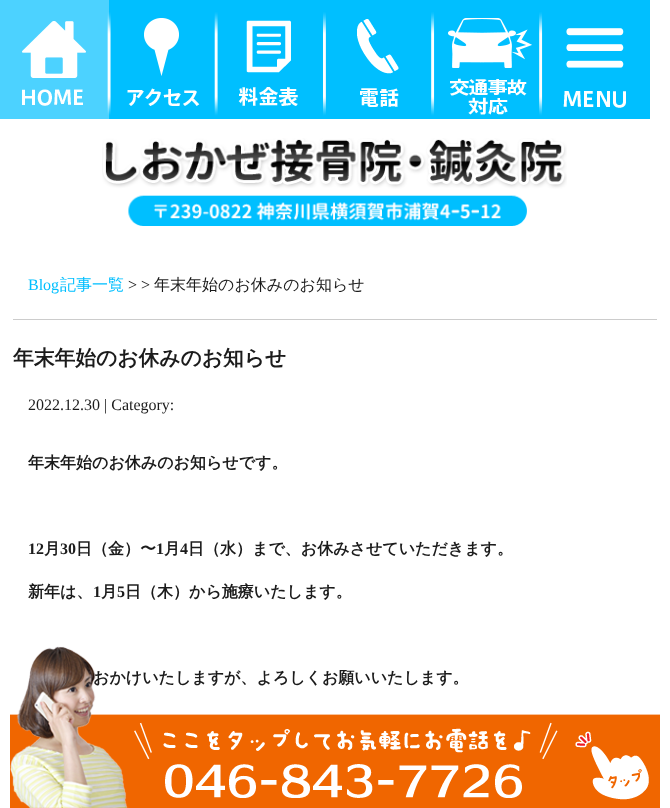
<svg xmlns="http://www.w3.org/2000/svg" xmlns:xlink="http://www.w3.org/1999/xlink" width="670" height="808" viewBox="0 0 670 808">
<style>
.cls-1{font:16px Liberation Serif;fill:#00bfff}
.cls-2{font:500 16px WenQuanYi Zen Hei;fill:#00bfff}
.cls-3{font:16px Liberation Serif;fill:#1b1b1b}
.cls-4{font:500 16px WenQuanYi Zen Hei;fill:#1b1b1b}
.cls-5{font:bold 20.75px WenQuanYi Zen Hei;fill:#1b1b1b}
.cls-6{font:bold 16px WenQuanYi Zen Hei;fill:#1b1b1b}
.cls-7{font:bold 16px Liberation Serif;fill:#1b1b1b}
</style>
<rect width="100%" height="100%" fill="#ffffff"/>
<image xlink:href="image0.png" x="0" y="0" width="109" height="119"/>
<image xlink:href="image1.png" x="109" y="0" width="108" height="119"/>
<image xlink:href="image2.png" x="217" y="0" width="108" height="119"/>
<image xlink:href="image3.png" x="325" y="0" width="108" height="119"/>
<image xlink:href="image4.png" x="433" y="0" width="108" height="119"/>
<image xlink:href="image5.png" x="541" y="0" width="109" height="119"/>
<image xlink:href="image6.png" x="102" y="138" width="465" height="88"/>
<rect fill="#cccccc" x="13" y="319" width="644" height="1"/>
<text class="cls-1" x="28" y="290">Blog</text>
<text class="cls-2" x="60" y="290">記事一覧</text>
<text class="cls-3" x="128" y="290">&gt; &gt;</text>
<text class="cls-4" x="154" y="290">年末年始のお休みのお知らせ</text>
<text class="cls-5" x="13" y="365">年末年始のお休みのお知らせ</text>
<text class="cls-3" x="28" y="410">2022.12.30 | Category:</text>
<text class="cls-6" x="28" y="468">年末年始のお休みのお知らせです。</text>
<text class="cls-7" x="28" y="554">12</text>
<text class="cls-6" x="44" y="554">月</text>
<text class="cls-7" x="60" y="554">30</text>
<text class="cls-6" x="76" y="554">日（金）〜</text>
<text class="cls-7" x="156" y="554">1</text>
<text class="cls-6" x="164" y="554">月</text>
<text class="cls-7" x="180" y="554">4</text>
<text class="cls-6" x="188" y="554">日（水）まで、お休みさせていただきます。</text>
<text class="cls-6" x="28" y="597">新年は、</text>
<text class="cls-7" x="93" y="597">1</text>
<text class="cls-6" x="101" y="597">月</text>
<text class="cls-7" x="117" y="597">5</text>
<text class="cls-6" x="125" y="597">日（木）から施療いたします。</text>
<text class="cls-6" x="93" y="683">おかけいたしますが、よろしくお願いいたします。</text>
<image xlink:href="image7.png" x="10" y="646" width="650" height="162"/>
</svg>
